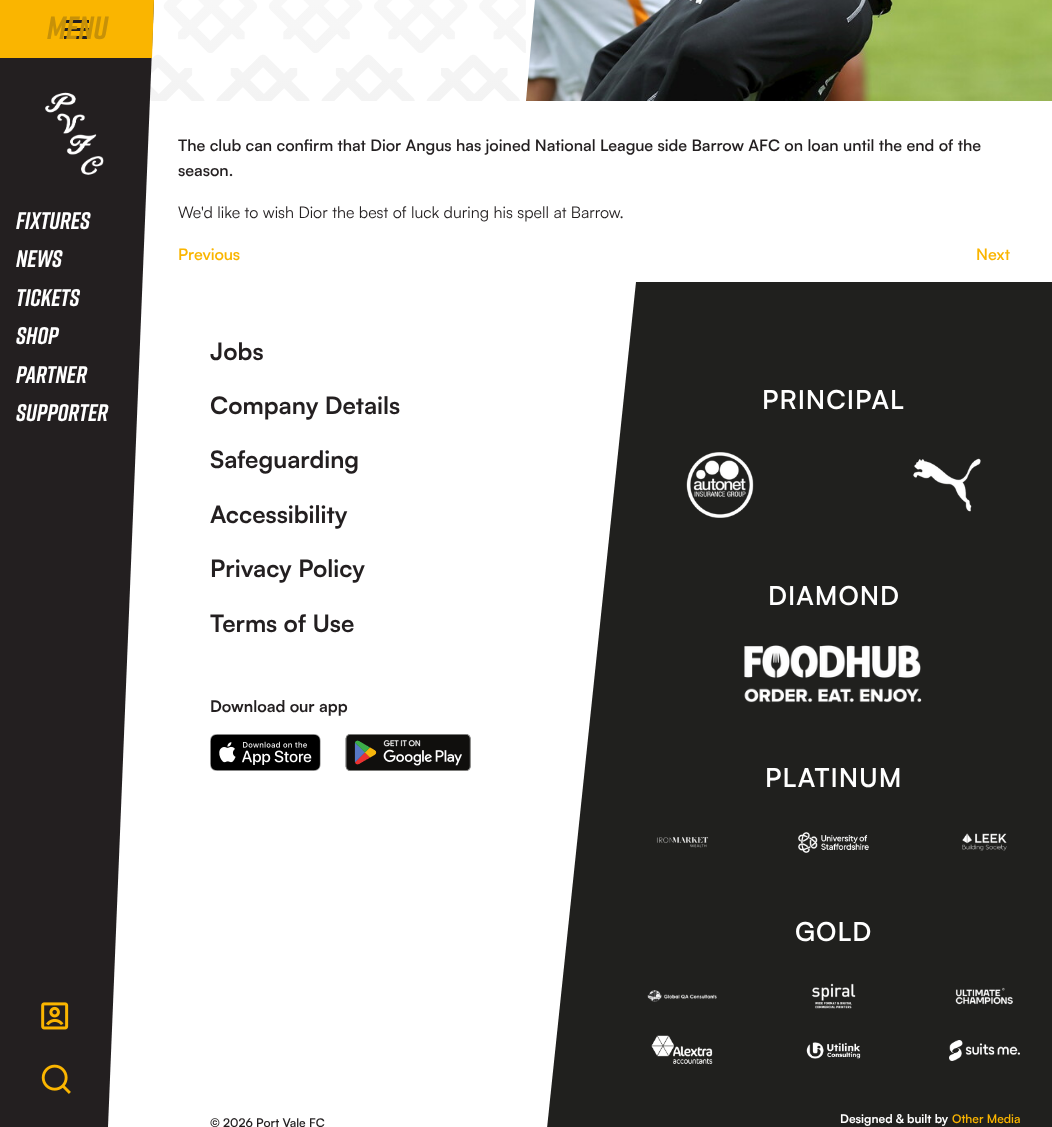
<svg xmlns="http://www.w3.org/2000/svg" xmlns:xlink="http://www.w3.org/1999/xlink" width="1052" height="1127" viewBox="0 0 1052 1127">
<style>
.cls-1{font:italic bold 32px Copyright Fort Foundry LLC;fill:#c79108}
.cls-2{font:italic bold 24px Copyright Fort Foundry LLC;fill:#ffffff}
.cls-3{font:600 16px Satoshi;fill:#231f20}
.cls-4{font:16px Satoshi;fill:#231f20}
.cls-5{font:600 16px Satoshi;fill:#fab500}
.cls-6{font:bold 24px Satoshi;fill:#231f20}
.cls-7{font:bold 16px Satoshi;fill:#231f20}
.cls-8{font:600 26px Satoshi;letter-spacing:1px;fill:#ffffff}
.cls-9{font:600 12px Satoshi;fill:#231f20}
.cls-10{font:bold 12px Satoshi;fill:#ffffff}
.cls-11{font:600 12px Satoshi;fill:#fab500}
</style>
<rect width="100%" height="100%" fill="#ffffff"/>
<image xlink:href="image3.png" x="149" y="0" width="377" height="101"/>
<path fill="#231f20" d="M0 0V1127H108L154 0Z"/>
<path fill="#fab500" d="M0 0V58H152L154 0Z"/>
<rect fill="#231f20" x="64" y="28" width="25" height="3"/>
<rect fill="#231f20" x="64" y="20" width="25" height="3"/>
<rect fill="#231f20" x="64" y="36" width="25" height="3"/>
<image xlink:href="image0.png" x="41" y="1002" width="28" height="28"/>
<image xlink:href="image1.png" x="41" y="1064" width="30" height="30"/>
<image xlink:href="image2.png" x="45" y="92" width="59" height="83"/>
<image xlink:href="image4.png" x="526" y="0" width="526" height="101"/>
<image xlink:href="image5.png" x="210" y="734" width="111" height="37"/>
<image xlink:href="image6.png" x="345" y="734" width="126" height="37"/>
<path fill="#20201e" d="M636 282H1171L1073 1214H538Z"/>
<image xlink:href="image7.png" x="686" y="452" width="68" height="66"/>
<image xlink:href="image8.png" x="913" y="458" width="68" height="54"/>
<image xlink:href="image9.png" x="744" y="645" width="178" height="58"/>
<image xlink:href="image10.png" x="656" y="836" width="53" height="12"/>
<image xlink:href="image11.png" x="798" y="832" width="71" height="21"/>
<image xlink:href="image12.png" x="962" y="833" width="45" height="18"/>
<image xlink:href="image13.png" x="647" y="990" width="70" height="12"/>
<image xlink:href="image14.png" x="811" y="983" width="45" height="26"/>
<image xlink:href="image15.png" x="955" y="987" width="58" height="18"/>
<image xlink:href="image16.png" x="651" y="1035" width="62" height="29"/>
<image xlink:href="image17.png" x="806" y="1042" width="55" height="17"/>
<image xlink:href="image18.png" x="949" y="1040" width="71" height="21"/>
<text class="cls-1" x="47" y="39">Menu</text>
<text class="cls-2"><tspan x="16" y="229">Fixtures</tspan><tspan x="16" y="267">News</tspan><tspan x="16" y="306">Tickets</tspan><tspan x="16" y="344">Shop</tspan><tspan x="16" y="383">Partner</tspan><tspan x="16" y="421">Supporter</tspan></text>
<text class="cls-3"><tspan x="178" y="151">The club can confirm that Dior Angus has joined National League side Barrow AFC on loan until the end of the</tspan><tspan x="178" y="176">season.</tspan></text>
<text class="cls-4" x="178" y="218">We'd like to wish Dior the best of luck during his spell at Barrow.</text>
<text class="cls-5" x="178" y="260">Previous</text>
<text class="cls-5" x="976" y="260">Next</text>
<text class="cls-6" x="210" y="360">Jobs</text>
<text class="cls-6" x="210" y="414">Company Details</text>
<text class="cls-6" x="210" y="468">Safeguarding</text>
<text class="cls-6" x="210" y="523">Accessibility</text>
<text class="cls-6" x="210" y="577">Privacy Policy</text>
<text class="cls-6" x="210" y="632">Terms of Use</text>
<text class="cls-7" x="210" y="712">Download our app</text>
<text class="cls-8" x="762" y="409">PRINCIPAL</text>
<text class="cls-8" x="768" y="605">DIAMOND</text>
<text class="cls-8" x="765" y="787">PLATINUM</text>
<text class="cls-8" x="795" y="941">GOLD</text>
<text class="cls-9" x="210" y="1127">© 2026 Port Vale FC</text>
<text class="cls-10" x="840" y="1123">Designed &amp; built by</text>
<text class="cls-11" x="952" y="1123">Other Media</text>
</svg>
